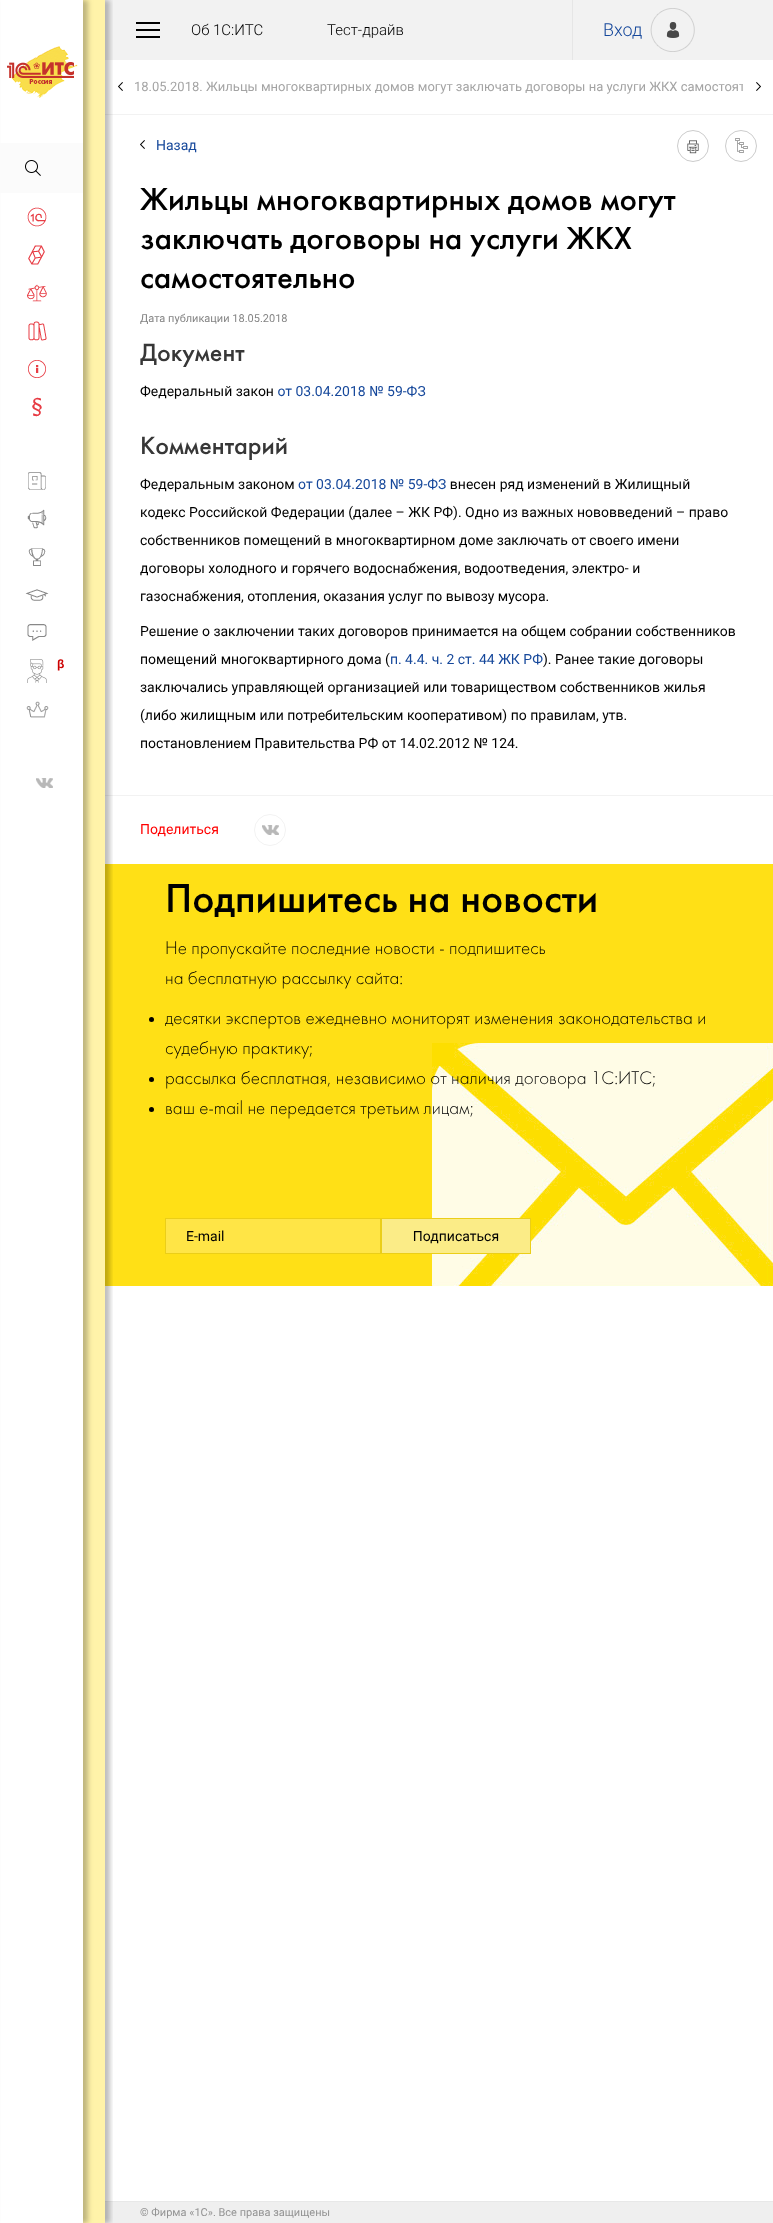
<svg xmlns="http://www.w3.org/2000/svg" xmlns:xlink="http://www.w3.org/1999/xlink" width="773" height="2223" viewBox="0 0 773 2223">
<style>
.cls-1{font:300 15px Roboto;fill:#000000}
.cls-2{font:300 18px Roboto;fill:#16489b}
.cls-3{font:13px Roboto;fill:#a4a4a4}
.cls-4{font:14px Roboto;fill:#16489b}
.cls-5{font:bold 12px Liberation Sans;fill:#cc0000}
.cls-6{font:11px Roboto;fill:#939393}
</style>
<defs>
<clipPath id="clip1"><rect x="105" y="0" width="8" height="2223"/></clipPath>
<clipPath id="clip2"><rect x="134" y="60" width="609" height="53"/></clipPath>
</defs>
<rect width="100%" height="100%" fill="#ffffff"/>
<rect fill="#f2f2f2" x="105" y="0" width="668" height="60"/>
<image xlink:href="image0.png" x="136" y="22" width="24" height="16"/>
<rect fill="#e6e6e6" x="572" y="0" width="1" height="60"/>
<image xlink:href="image1.png" x="650" y="8" width="45" height="44"/>
<rect fill="#f2f2f2" x="105" y="114" width="668" height="1"/>
<image xlink:href="image2.png" x="118" y="82" width="5" height="9"/>
<image xlink:href="image3.png" x="756" y="82" width="5" height="9"/>
<image xlink:href="image2.png" x="140" y="140" width="5" height="9"/>
<image xlink:href="image4.png" x="687" y="140" width="12" height="14"/>
<circle fill="none" stroke="#cccccc" cx="693" cy="146" r="15.5"/>
<image xlink:href="image5.png" x="735" y="138" width="13" height="15"/>
<circle fill="none" stroke="#cccccc" cx="741" cy="146" r="15.5"/>
<image xlink:href="image6.png" x="105" y="188" width="668" height="1098"/>
<rect fill="#fff3a9" x="83" y="0" width="22" height="2223"/>
<rect fill="#000000" fill-opacity="0.25" filter="blur(2.5px)" x="5" y="0" width="83" height="2223"/>
<rect fill="#ffffff" x="1" y="0" width="82" height="2223"/>
<image xlink:href="image7.png" x="7" y="46" width="71" height="52"/>
<rect fill="#fbfbfb" x="0" y="143" width="83" height="50"/>
<image xlink:href="image8.png" x="25" y="160" width="16" height="16"/>
<image xlink:href="image9.png" x="27" y="207" width="20" height="20"/>
<image xlink:href="image10.png" x="28" y="245" width="17" height="20"/>
<image xlink:href="image11.png" x="27" y="284" width="20" height="18"/>
<image xlink:href="image12.png" x="28" y="321" width="19" height="20"/>
<image xlink:href="image13.png" x="28" y="360" width="18" height="18"/>
<image xlink:href="image14.png" x="32" y="397" width="10" height="20"/>
<rect fill="#efefef" x="105" y="2202" width="668" height="21"/>
<rect fill="#e8e8e8" x="105" y="2201" width="668" height="1"/>
<g clip-path="url(#clip1)">
<rect fill="#000000" fill-opacity="0.25" filter="blur(2.5px)" x="92" y="0" width="18" height="2223"/>
</g>
<image xlink:href="image15.png" x="28" y="472" width="18" height="18"/>
<image xlink:href="image16.png" x="27" y="509" width="20" height="20"/>
<image xlink:href="image17.png" x="28" y="548" width="18" height="18"/>
<image xlink:href="image18.png" x="25" y="589" width="24" height="12"/>
<image xlink:href="image19.png" x="27" y="624" width="20" height="17"/>
<image xlink:href="image20.png" x="27" y="659" width="20" height="24"/>
<image xlink:href="image21.png" x="26" y="701" width="23" height="17"/>
<image xlink:href="image22.png" x="36" y="778" width="17" height="10"/>
<text class="cls-1" x="191" y="35">Об 1С:ИТС</text>
<text class="cls-1" x="327" y="35">Тест-драйв</text>
<text class="cls-2" x="603" y="36">Вход</text>
<text class="cls-3" x="134" y="91">18.05.2018.</text>
<g clip-path="url(#clip2)">
<text class="cls-3" x="206" y="91">Жильцы многоквартирных домов могут заключать договоры на услуги ЖКХ самостоят</text>
</g>
<text class="cls-4" x="156" y="150">Назад</text>
<text class="cls-5" x="57" y="668">β</text>
<text class="cls-6" x="140" y="2216">© Фирма «1С». Все права защищены</text>
</svg>
